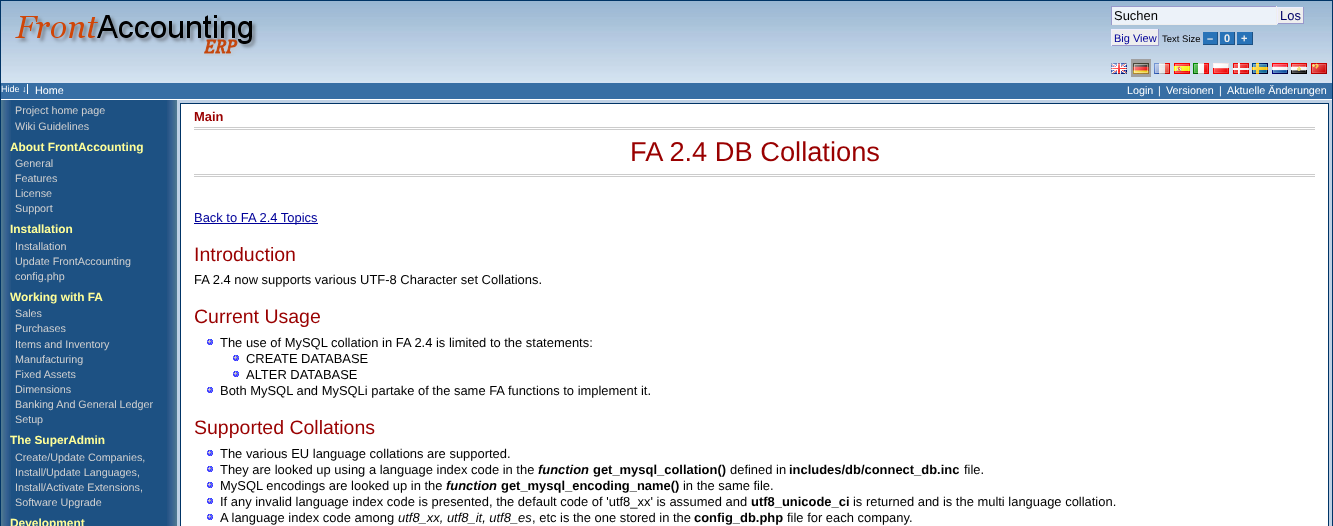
<svg xmlns="http://www.w3.org/2000/svg" xmlns:xlink="http://www.w3.org/1999/xlink" width="1333" height="526" viewBox="0 0 1333 526">
<style>
.cls-1{font:12.95px Liberation Sans;fill:#000000}
.cls-2{font:12.95px Liberation Sans;fill:#000066}
.cls-3{font:11px Liberation Sans;fill:#000099}
.cls-4{font:9.5px Liberation Sans;fill:#000000}
.cls-5{font:bold 11px Liberation Sans;fill:#eeeeee}
.cls-6{font:9px Liberation Sans;fill:#ffffff}
.cls-7{font:10.75px Liberation Sans;fill:#ffffff}
.cls-8{font:10.75px Liberation Sans;fill:#d0d0d0}
.cls-9{font:bold 11.9px Liberation Sans;fill:#ffff99}
.cls-10{font:bold 12.95px Liberation Sans;fill:#990000}
.cls-11{font:27.25px Liberation Sans;fill:#990000}
.cls-12{font:12.95px Liberation Sans;fill:#000099}
.cls-13{font:19.5px Liberation Sans;fill:#990000}
.cls-14{font:italic bold 12.95px Liberation Sans;fill:#000000}
.cls-15{font:bold 12.95px Liberation Sans;fill:#000000}
.cls-16{font:italic 12.95px Liberation Sans;fill:#000000}
</style>
<rect width="100%" height="100%" fill="#1d5183"/>
<image xlink:href="image0.png" x="1" y="100" width="10" height="426"/>
<rect fill="none" stroke="#003466" x="0.5" y="0.5" width="1332" height="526"/>
<image xlink:href="image1.png" x="1" y="1" width="1331" height="82"/>
<image xlink:href="image2.png" x="15" y="15" width="243" height="41"/>
<rect fill="#ecf2f9" x="1112" y="7" width="164" height="17"/>
<rect fill="#9999cc" x="1111" y="6" width="166" height="1"/>
<rect fill="#eeeeee" x="1276" y="6" width="1" height="19"/>
<rect fill="#eeeeee" x="1111" y="24" width="166" height="1"/>
<rect fill="#9999cc" x="1111" y="6" width="1" height="19"/>
<rect fill="#eeeeee" x="1278" y="8" width="25" height="15"/>
<rect fill="#eeeeff" x="1277" y="7" width="27" height="1"/>
<rect fill="#9999cc" x="1303" y="7" width="1" height="17"/>
<rect fill="#9999cc" x="1277" y="23" width="27" height="1"/>
<rect fill="#eeeeff" x="1277" y="7" width="1" height="17"/>
<rect fill="#eeeeee" x="1112" y="30" width="46" height="15"/>
<rect fill="#eeeeff" x="1111" y="29" width="48" height="1"/>
<rect fill="#9999cc" x="1158" y="29" width="1" height="17"/>
<rect fill="#9999cc" x="1111" y="45" width="48" height="1"/>
<rect fill="#eeeeff" x="1111" y="29" width="1" height="17"/>
<rect fill="#2873b8" x="1203" y="32" width="14" height="12"/>
<rect fill="#1d5183" x="1217" y="32" width="1" height="13"/>
<rect fill="#1d5183" x="1203" y="44" width="15" height="1"/>
<rect fill="#2873b8" x="1220" y="32" width="14" height="12"/>
<rect fill="#1d5183" x="1234" y="32" width="1" height="13"/>
<rect fill="#1d5183" x="1220" y="44" width="15" height="1"/>
<rect fill="#2873b8" x="1237" y="32" width="15" height="12"/>
<rect fill="#1d5183" x="1252" y="32" width="1" height="13"/>
<rect fill="#1d5183" x="1237" y="44" width="16" height="1"/>
<image xlink:href="image3.png" x="1111" y="63" width="16" height="11"/>
<rect fill="#a0a0a0" x="1131" y="59" width="20" height="18"/>
<image xlink:href="image4.png" x="1133" y="63" width="16" height="11"/>
<image xlink:href="image5.png" x="1154" y="63" width="16" height="11"/>
<image xlink:href="image6.png" x="1174" y="63" width="16" height="11"/>
<image xlink:href="image7.png" x="1193" y="63" width="16" height="11"/>
<image xlink:href="image8.png" x="1213" y="63" width="16" height="11"/>
<image xlink:href="image9.png" x="1233" y="63" width="16" height="11"/>
<image xlink:href="image10.png" x="1252" y="63" width="16" height="11"/>
<image xlink:href="image11.png" x="1272" y="63" width="16" height="11"/>
<image xlink:href="image12.png" x="1291" y="63" width="16" height="11"/>
<image xlink:href="image13.png" x="1311" y="63" width="16" height="11"/>
<rect fill="#376ea4" x="1" y="83" width="1331" height="16"/>
<rect fill="#ffffff" x="1" y="99" width="1331" height="1"/>
<rect fill="#ffffff" x="27" y="84" width="1" height="10"/>
<image xlink:href="image14.png" x="167" y="100" width="10" height="426"/>
<rect fill="#bed0e4" x="177" y="100" width="1155" height="426"/>
<rect fill="#ffffff" stroke="#003466" x="180.5" y="103.5" width="1148" height="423"/>
<rect fill="#cccccc" x="194" y="127" width="1121" height="1"/>
<rect fill="#cccccc" x="194" y="129" width="1121" height="1"/>
<rect fill="#cccccc" x="194" y="174" width="1121" height="1"/>
<rect fill="#cccccc" x="194" y="176" width="1121" height="1"/>
<rect fill="#000099" x="194" y="223" width="124" height="1"/>
<image xlink:href="image15.png" x="207" y="339" width="6" height="6"/>
<image xlink:href="image15.png" x="233" y="355" width="6" height="6"/>
<image xlink:href="image15.png" x="233" y="371" width="6" height="6"/>
<image xlink:href="image15.png" x="207" y="387" width="6" height="6"/>
<image xlink:href="image15.png" x="207" y="450" width="6" height="6"/>
<image xlink:href="image15.png" x="207" y="466" width="6" height="6"/>
<image xlink:href="image15.png" x="207" y="482" width="6" height="6"/>
<image xlink:href="image15.png" x="207" y="498" width="6" height="6"/>
<image xlink:href="image15.png" x="207" y="514" width="6" height="6"/>
<text class="cls-1" x="1114" y="20">Suchen</text>
<text class="cls-2" x="1280" y="20">Los</text>
<text class="cls-3" x="1114" y="42">Big View</text>
<text class="cls-4" x="1162" y="42">Text Size</text>
<text class="cls-5" x="1207" y="42">–</text>
<text class="cls-5" x="1224" y="42">0</text>
<text class="cls-5" x="1241" y="42">+</text>
<text class="cls-6" x="1" y="92">Hide ↓</text>
<text class="cls-7" x="35" y="94">Home</text>
<text class="cls-7" x="1127" y="94">Login</text>
<text class="cls-7" x="1158" y="94">|</text>
<text class="cls-7" x="1166" y="94">Versionen</text>
<text class="cls-7" x="1219" y="94">|</text>
<text class="cls-7" x="1227" y="94">Aktuelle Änderungen</text>
<text class="cls-8"><tspan x="15" y="114">Project home page</tspan><tspan x="15" y="130">Wiki Guidelines</tspan></text>
<text class="cls-9" x="10" y="151">About FrontAccounting</text>
<text class="cls-8"><tspan x="15" y="167">General</tspan><tspan x="15" y="182">Features</tspan><tspan x="15" y="197">License</tspan><tspan x="15" y="212">Support</tspan></text>
<text class="cls-9" x="10" y="233">Installation</text>
<text class="cls-8"><tspan x="15" y="250">Installation</tspan><tspan x="15" y="265">Update FrontAccounting</tspan><tspan x="15" y="280">config.php</tspan></text>
<text class="cls-9" x="10" y="301">Working with FA</text>
<text class="cls-8"><tspan x="15" y="317">Sales</tspan><tspan x="15" y="332">Purchases</tspan><tspan x="15" y="348">Items and Inventory</tspan><tspan x="15" y="363">Manufacturing</tspan><tspan x="15" y="378">Fixed Assets</tspan><tspan x="15" y="393">Dimensions</tspan><tspan x="15" y="408">Banking And General Ledger</tspan><tspan x="15" y="423">Setup</tspan></text>
<text class="cls-9" x="10" y="444">The SuperAdmin</text>
<text class="cls-8"><tspan x="15" y="461">Create/Update Companies,</tspan><tspan x="15" y="476">Install/Update Languages,</tspan><tspan x="15" y="491">Install/Activate Extensions,</tspan><tspan x="15" y="506">Software Upgrade</tspan></text>
<text class="cls-9" x="10" y="527">Development</text>
<text class="cls-10" x="194" y="121">Main</text>
<text class="cls-11" x="630" y="161">FA 2.4 DB Collations</text>
<text class="cls-12" x="194" y="222">Back to FA 2.4 Topics</text>
<text class="cls-13" x="194" y="261">Introduction</text>
<text class="cls-1" x="194" y="284">FA 2.4 now supports various UTF-8 Character set Collations.</text>
<text class="cls-13" x="194" y="323">Current Usage</text>
<text class="cls-1" x="220" y="347">The use of MySQL collation in FA 2.4 is limited to the statements:</text>
<text class="cls-1"><tspan x="246" y="363">CREATE DATABASE</tspan><tspan x="246" y="379">ALTER DATABASE</tspan></text>
<text class="cls-1" x="220" y="395">Both MySQL and MySQLi partake of the same FA functions to implement it.</text>
<text class="cls-13" x="194" y="434">Supported Collations</text>
<text class="cls-1"><tspan x="220" y="458">The various EU language collations are supported.</tspan><tspan x="220" y="474">They are looked up using a language index code in the</tspan></text>
<text class="cls-14" x="538" y="474">function</text>
<text class="cls-15" x="593" y="474">get_mysql_collation()</text>
<text class="cls-1" x="730" y="474">defined in</text>
<text class="cls-15" x="789" y="474">includes/db/connect_db.inc</text>
<text class="cls-1" x="964" y="474">file.</text>
<text class="cls-1" x="220" y="490">MySQL encodings are looked up in the</text>
<text class="cls-14" x="446" y="490">function</text>
<text class="cls-15" x="501" y="490">get_mysql_encoding_name()</text>
<text class="cls-1" x="683" y="490">in the same file.</text>
<text class="cls-1" x="220" y="506">If any invalid language index code is presented, the default code of 'utf8_xx' is assumed and</text>
<text class="cls-15" x="751" y="506">utf8_unicode_ci</text>
<text class="cls-1" x="853" y="506">is returned and is the multi language collation.</text>
<text class="cls-1" x="220" y="522">A language index code among</text>
<text class="cls-16" x="398" y="522">utf8_xx, utf8_it, utf8_es</text>
<text class="cls-1" x="532" y="522">, etc is the one stored in the</text>
<text class="cls-15" x="694" y="522">config_db.php</text>
<text class="cls-1" x="787" y="522">file for each company.</text>
</svg>
